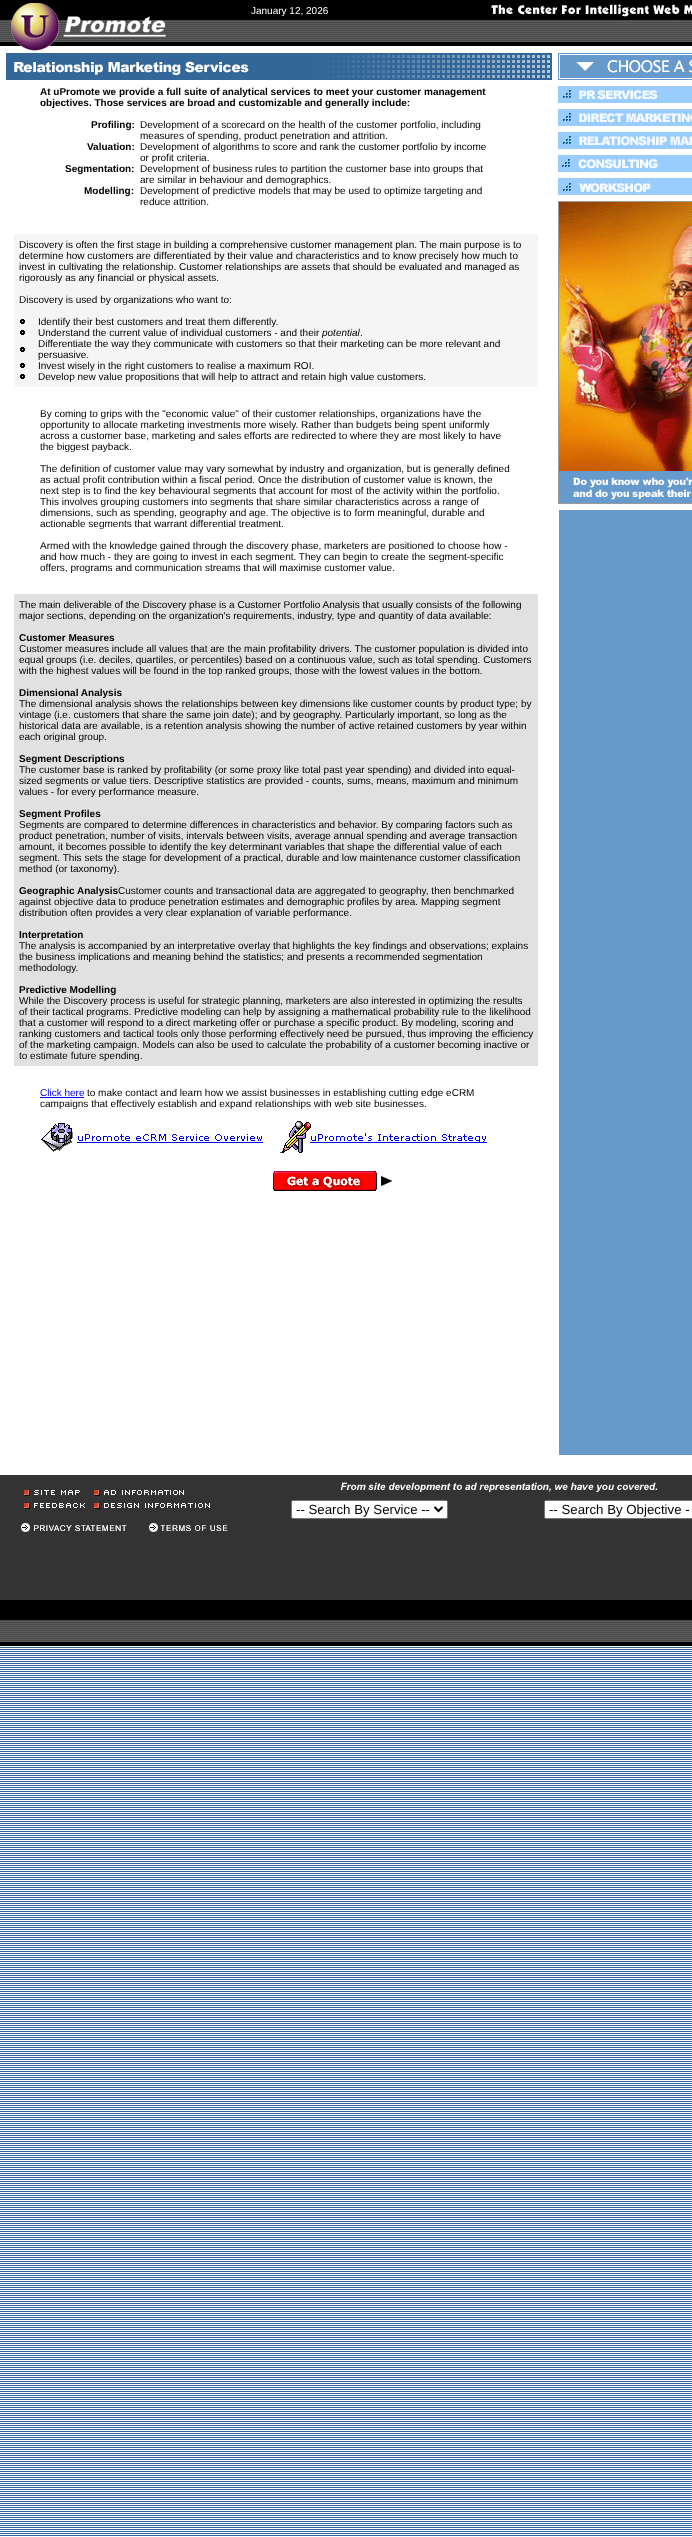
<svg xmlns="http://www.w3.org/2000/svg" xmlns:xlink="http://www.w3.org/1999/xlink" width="692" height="2537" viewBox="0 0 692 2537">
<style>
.cls-1{font:10px Liberation Sans;fill:#ffffff}
.cls-2{font:bold 10px Liberation Sans;fill:#000000}
.cls-3{font:10px Liberation Sans;fill:#000000}
.cls-4{font:italic 10px Liberation Sans;fill:#000000}
.cls-5{font:10px Liberation Sans;fill:#0000ee}
.cls-6{font:13.25px Liberation Sans;fill:#000000}
</style>
<rect width="100%" height="100%" fill="#ffffff"/>
<image xlink:href="image0.png" x="0" y="0" width="692" height="2536"/>
<image xlink:href="image1.png" x="9" y="3" width="158" height="49"/>
<rect fill="#ffffff" x="167" y="47" width="525" height="5"/>
<image xlink:href="image2.png" x="491" y="4" width="201" height="16"/>
<rect fill="#ffffff" x="0" y="47" width="9" height="5"/>
<image xlink:href="image3.png" x="0" y="53" width="313" height="33"/>
<image xlink:href="image4.png" x="313" y="53" width="245" height="33"/>
<image xlink:href="image5.png" x="558" y="53" width="134" height="33"/>
<rect fill="#ffffff" x="0" y="87" width="692" height="1387"/>
<rect fill="#f5f5f5" x="14" y="234" width="524" height="153"/>
<image xlink:href="image6.png" x="20" y="319" width="5" height="5"/>
<image xlink:href="image6.png" x="20" y="330" width="5" height="5"/>
<image xlink:href="image6.png" x="20" y="347" width="5" height="5"/>
<image xlink:href="image6.png" x="20" y="363" width="5" height="5"/>
<image xlink:href="image6.png" x="20" y="374" width="5" height="5"/>
<rect fill="#e1e1e1" x="14" y="594" width="524" height="472"/>
<rect fill="#0000ee" x="40" y="1097" width="44" height="1"/>
<image xlink:href="image7.png" x="41" y="1123" width="222" height="29"/>
<image xlink:href="image8.png" x="280" y="1121" width="207" height="32"/>
<image xlink:href="image9.png" x="273" y="1171" width="104" height="21"/>
<image xlink:href="image10.png" x="381" y="1176" width="11" height="10"/>
<image xlink:href="image11.png" x="558" y="86" width="134" height="17"/>
<image xlink:href="image12.png" x="558" y="109" width="134" height="17"/>
<image xlink:href="image13.png" x="558" y="132" width="134" height="17"/>
<image xlink:href="image14.png" x="558" y="155" width="134" height="17"/>
<image xlink:href="image15.png" x="558" y="178" width="134" height="17"/>
<image xlink:href="image16.png" x="558" y="201" width="134" height="270"/>
<image xlink:href="image17.png" x="558" y="471" width="134" height="33"/>
<rect fill="#6699cc" x="559" y="510" width="133" height="945"/>
<rect fill="#333333" x="0" y="1475" width="245" height="1"/>
<image xlink:href="image18.png" x="24" y="1490" width="56" height="6"/>
<image xlink:href="image19.png" x="94" y="1490" width="90" height="6"/>
<image xlink:href="image20.png" x="24" y="1503" width="61" height="6"/>
<image xlink:href="image21.png" x="94" y="1503" width="116" height="6"/>
<image xlink:href="image22.png" x="21" y="1523" width="106" height="9"/>
<image xlink:href="image23.png" x="149" y="1523" width="79" height="9"/>
<image xlink:href="image24.png" x="245" y="1475" width="447" height="17"/>
<rect fill="#ffffff" stroke="#767676" x="291.5" y="1500.5" width="156" height="18" rx="1.5"/>
<path fill="none" stroke="#000000" stroke-width="2" d="M434.5 1507L438.5 1511L442.5 1507"/>
<rect fill="#ffffff" stroke="#767676" x="544.5" y="1500.5" width="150" height="18" rx="1.5"/>
<text class="cls-1" x="251" y="14">January 12, 2026</text>
<text class="cls-2"><tspan x="40" y="95">At uPromote we provide a full suite of analytical services to meet your customer management</tspan><tspan x="40" y="106">objectives. Those services are broad and customizable and generally include:</tspan></text>
<text class="cls-2" x="91" y="128">Profiling:</text>
<text class="cls-3"><tspan x="140" y="128">Development of a scorecard on the health of the customer portfolio, including</tspan><tspan x="140" y="139">measures of spending, product penetration and attrition.</tspan></text>
<text class="cls-2" x="87" y="150">Valuation:</text>
<text class="cls-3"><tspan x="140" y="150">Development of algorithms to score and rank the customer portfolio by income</tspan><tspan x="140" y="161">or profit criteria.</tspan></text>
<text class="cls-2" x="65" y="172">Segmentation:</text>
<text class="cls-3"><tspan x="140" y="172">Development of business rules to partition the customer base into groups that</tspan><tspan x="140" y="183">are similar in behaviour and demographics.</tspan></text>
<text class="cls-2" x="84" y="194">Modelling:</text>
<text class="cls-3"><tspan x="140" y="194">Development of predictive models that may be used to optimize targeting and</tspan><tspan x="140" y="205">reduce attrition.</tspan></text>
<text class="cls-3"><tspan x="19" y="248">Discovery is often the first stage in building a comprehensive customer management plan. The main purpose is to</tspan><tspan x="19" y="259">determine how customers are differentiated by their value and characteristics and to know precisely how much to</tspan><tspan x="19" y="270">invest in cultivating the relationship. Customer relationships are assets that should be evaluated and managed as</tspan><tspan x="19" y="281">rigorously as any financial or physical assets.</tspan></text>
<text class="cls-3" x="19" y="303">Discovery is used by organizations who want to:</text>
<text class="cls-3"><tspan x="38" y="325">Identify their best customers and treat them differently.</tspan><tspan x="38" y="336">Understand the current value of individual customers - and their</tspan></text>
<text class="cls-4" x="322" y="336">potential</text>
<text class="cls-3" x="360" y="336">.</text>
<text class="cls-3"><tspan x="38" y="347">Differentiate the way they communicate with customers so that their marketing can be more relevant and</tspan><tspan x="38" y="358">persuasive.</tspan><tspan x="38" y="369">Invest wisely in the right customers to realise a maximum ROI.</tspan><tspan x="38" y="380">Develop new value propositions that will help to attract and retain high value customers.</tspan></text>
<text class="cls-3"><tspan x="40" y="417">By coming to grips with the "economic value" of their customer relationships, organizations have the</tspan><tspan x="40" y="428">opportunity to allocate marketing investments more wisely. Rather than budgets being spent uniformly</tspan><tspan x="40" y="439">across a customer base, marketing and sales efforts are redirected to where they are most likely to have</tspan><tspan x="40" y="450">the biggest payback.</tspan></text>
<text class="cls-3"><tspan x="40" y="472">The definition of customer value may vary somewhat by industry and organization, but is generally defined</tspan><tspan x="40" y="483">as actual profit contribution within a fiscal period. Once the distribution of customer value is known, the</tspan><tspan x="40" y="494">next step is to find the key behavioural segments that account for most of the activity within the portfolio.</tspan><tspan x="40" y="505">This involves grouping customers into segments that share similar characteristics across a range of</tspan><tspan x="40" y="516">dimensions, such as spending, geography and age. The objective is to form meaningful, durable and</tspan><tspan x="40" y="527">actionable segments that warrant differential treatment.</tspan></text>
<text class="cls-3"><tspan x="40" y="549">Armed with the knowledge gained through the discovery phase, marketers are positioned to choose how -</tspan><tspan x="40" y="560">and how much - they are going to invest in each segment. They can begin to create the segment-specific</tspan><tspan x="40" y="571">offers, programs and communication streams that will maximise customer value.</tspan></text>
<text class="cls-3"><tspan x="19" y="608">The main deliverable of the Discovery phase is a Customer Portfolio Analysis that usually consists of the following</tspan><tspan x="19" y="619">major sections, depending on the organization's requirements, industry, type and quantity of data available:</tspan></text>
<text class="cls-2" x="19" y="641">Customer Measures</text>
<text class="cls-3"><tspan x="19" y="652">Customer measures include all values that are the main profitability drivers. The customer population is divided into</tspan><tspan x="19" y="663">equal groups (i.e. deciles, quartiles, or percentiles) based on a continuous value, such as total spending. Customers</tspan><tspan x="19" y="674">with the highest values will be found in the top ranked groups, those with the lowest values in the bottom.</tspan></text>
<text class="cls-2" x="19" y="696">Dimensional Analysis</text>
<text class="cls-3"><tspan x="19" y="707">The dimensional analysis shows the relationships between key dimensions like customer counts by product type; by</tspan><tspan x="19" y="718">vintage (i.e. customers that share the same join date); and by geography. Particularly important, so long as the</tspan><tspan x="19" y="729">historical data are available, is a retention analysis showing the number of active retained customers by year within</tspan><tspan x="19" y="740">each original group.</tspan></text>
<text class="cls-2" x="19" y="762">Segment Descriptions</text>
<text class="cls-3"><tspan x="19" y="773">The customer base is ranked by profitability (or some proxy like total past year spending) and divided into equal-</tspan><tspan x="19" y="784">sized segments or value tiers. Descriptive statistics are provided - counts, sums, means, maximum and minimum</tspan><tspan x="19" y="795">values - for every performance measure.</tspan></text>
<text class="cls-2" x="19" y="817">Segment Profiles</text>
<text class="cls-3"><tspan x="19" y="828">Segments are compared to determine differences in characteristics and behavior. By comparing factors such as</tspan><tspan x="19" y="839">product penetration, number of visits, intervals between visits, average annual spending and average transaction</tspan><tspan x="19" y="850">amount, it becomes possible to identify the key determinant variables that shape the differential value of each</tspan><tspan x="19" y="861">segment. This sets the stage for development of a practical, durable and low maintenance customer classification</tspan><tspan x="19" y="872">method (or taxonomy).</tspan></text>
<text class="cls-2" x="19" y="894">Geographic Analysis</text>
<text class="cls-3" x="118" y="894">Customer counts and transactional data are aggregated to geography, then benchmarked</text>
<text class="cls-3"><tspan x="19" y="905">against objective data to produce penetration estimates and demographic profiles by area. Mapping segment</tspan><tspan x="19" y="916">distribution often provides a very clear explanation of variable performance.</tspan></text>
<text class="cls-2" x="19" y="938">Interpretation</text>
<text class="cls-3"><tspan x="19" y="949">The analysis is accompanied by an interpretative overlay that highlights the key findings and observations; explains</tspan><tspan x="19" y="960">the business implications and meaning behind the statistics; and presents a recommended segmentation</tspan><tspan x="19" y="971">methodology.</tspan></text>
<text class="cls-2" x="19" y="993">Predictive Modelling</text>
<text class="cls-3"><tspan x="19" y="1004">While the Discovery process is useful for strategic planning, marketers are also interested in optimizing the results</tspan><tspan x="19" y="1015">of their tactical programs. Predictive modeling can help by assigning a mathematical probability rule to the likelihood</tspan><tspan x="19" y="1026">that a customer will respond to a direct marketing offer or purchase a specific product. By modeling, scoring and</tspan><tspan x="19" y="1037">ranking customers and tactical tools only those performing effectively need be pursued, thus improving the efficiency</tspan><tspan x="19" y="1048">of the marketing campaign. Models can also be used to calculate the probability of a customer becoming inactive or</tspan><tspan x="19" y="1059">to estimate future spending.</tspan></text>
<text class="cls-5" x="40" y="1096">Click here</text>
<text class="cls-3" x="87" y="1096">to make contact and learn how we assist businesses in establishing cutting edge eCRM</text>
<text class="cls-3" x="40" y="1107">campaigns that effectively establish and expand relationships with web site businesses.</text>
<text class="cls-6" x="296" y="1514">-- Search By Service --</text>
<text class="cls-6" x="549" y="1514">-- Search By Objective -</text>
</svg>
